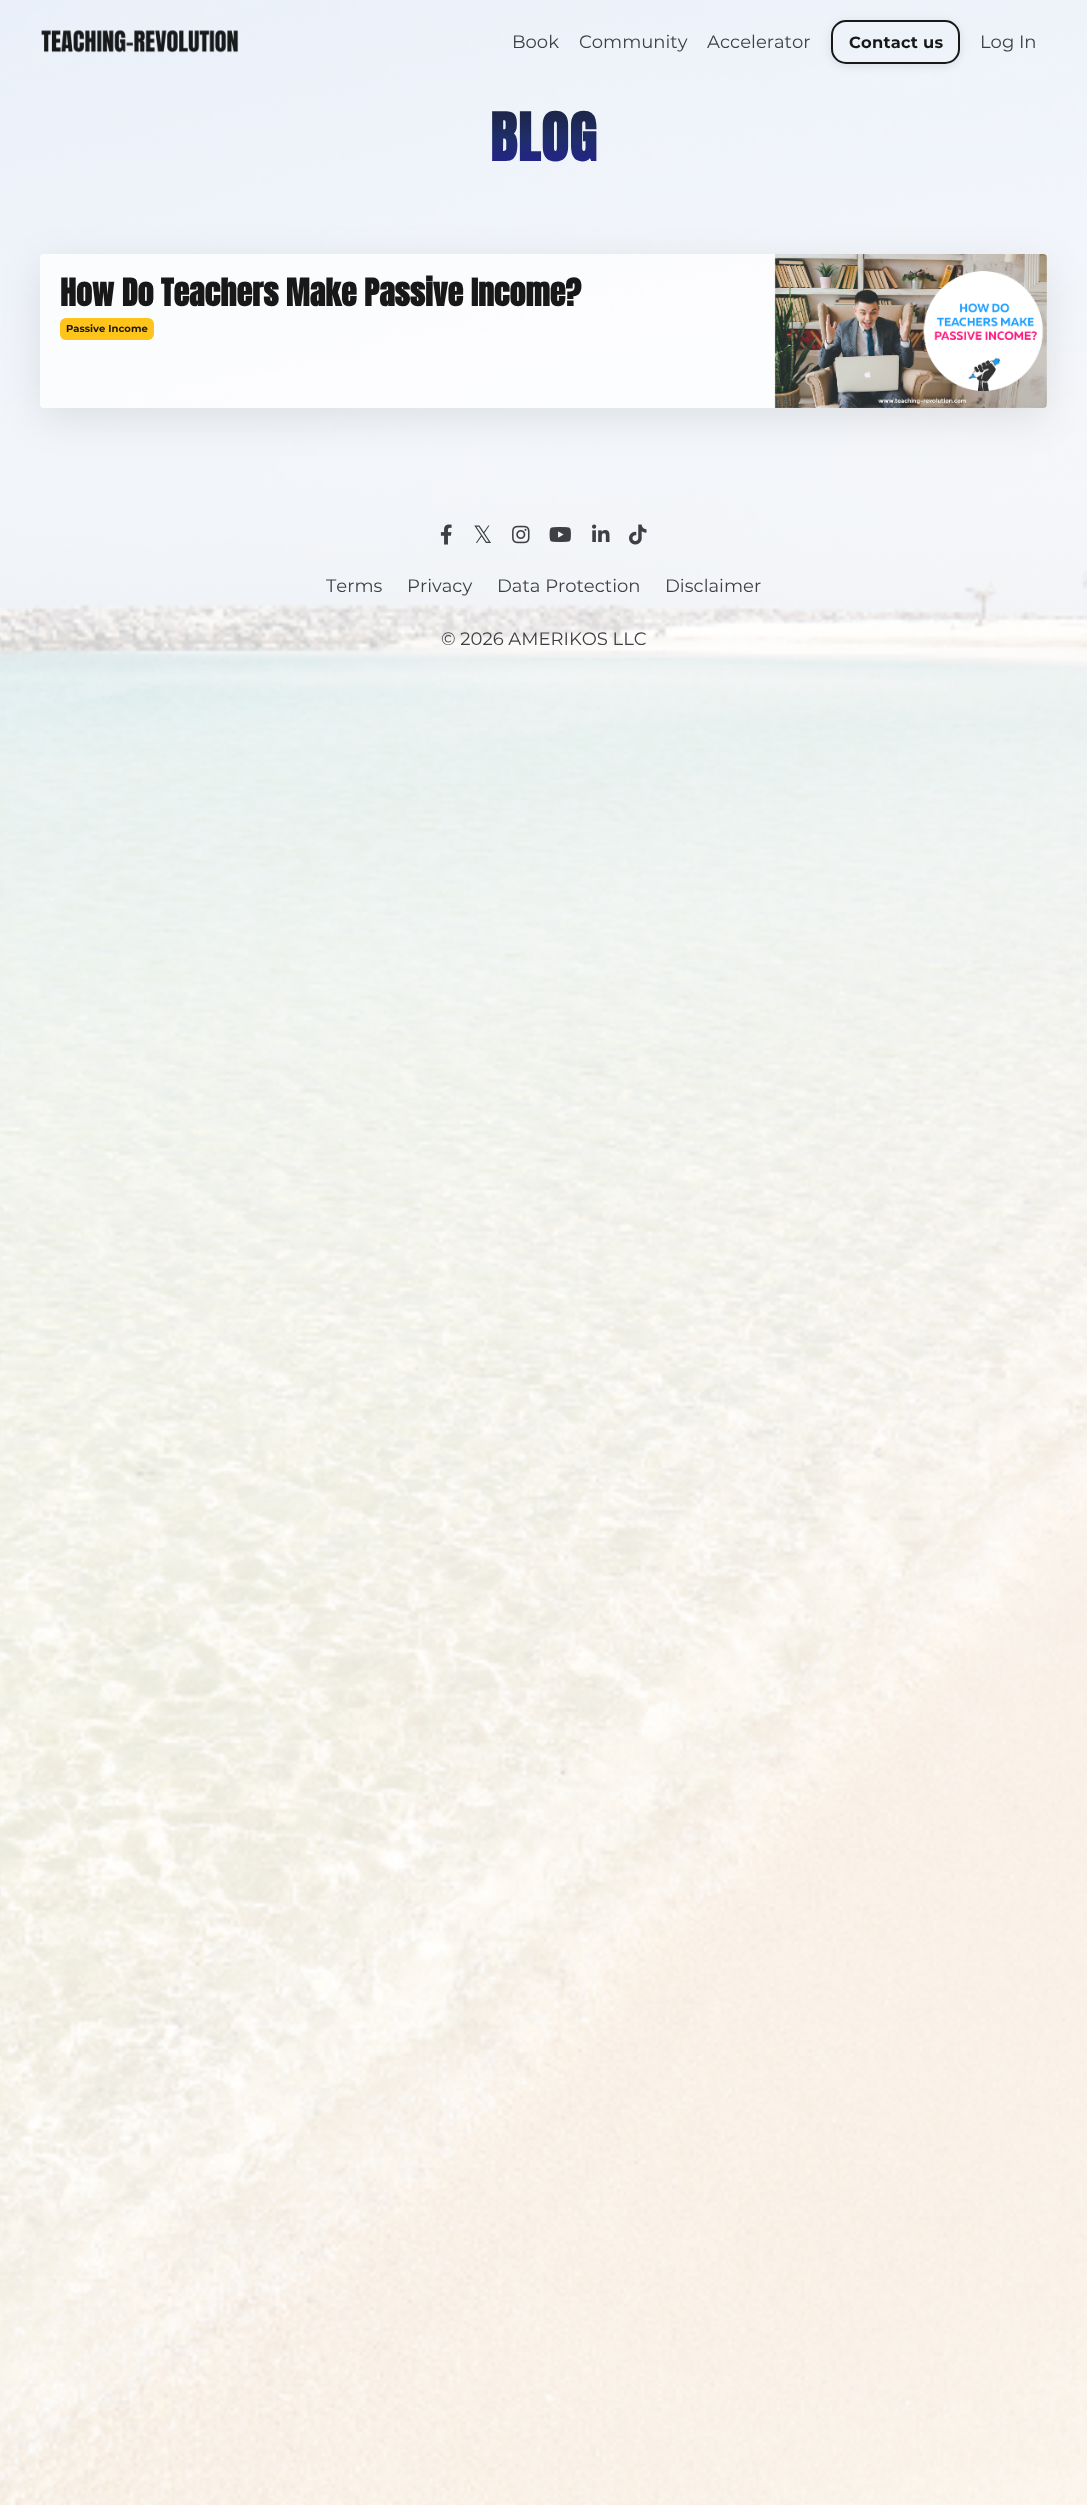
<svg xmlns="http://www.w3.org/2000/svg" xmlns:xlink="http://www.w3.org/1999/xlink" width="1087" height="2505" viewBox="0 0 1087 2505">
<style>*{font-kerning:none!important;font-variant-ligatures:none!important}</style>
<style>
.cls-1{font:18px Montserrat;fill:#3e3f44}
.cls-2{font:bold 16.25px Montserrat;letter-spacing:0.25px;fill:#181819}
.cls-3{font:bold 56px Anton;letter-spacing:1px;fill:url(#g1)}
.cls-4{font:bold 32px Anton;fill:#181819}
.cls-5{font:bold 10px Montserrat;fill:#181819}
.cls-6{font:24px DejaVu Sans;fill:#3e3f44}
</style>
<defs>
<clipPath id="clip1"><path d="M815 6H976V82H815ZM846 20H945C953.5 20 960 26.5 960 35V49C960 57.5 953.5 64 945 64H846C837.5 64 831 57.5 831 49V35C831 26.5 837.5 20 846 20Z" clip-rule="evenodd"/></clipPath>
<clipPath id="clip2"><path d="M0 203H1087V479H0ZM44 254H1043C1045 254 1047 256 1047 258V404C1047 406 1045 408 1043 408H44C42 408 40 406 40 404V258C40 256 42 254 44 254Z" clip-rule="evenodd"/></clipPath>
<linearGradient id="g1" gradientUnits="userSpaceOnUse" x1="544" y1="99" x2="544" y2="176"><stop offset="0" stop-color="#1b2037"/><stop offset="0.5" stop-color="#1f2e69"/><stop offset="1" stop-color="#251f96"/></linearGradient>
</defs>
<rect width="100%" height="100%" fill="#ffffff"/>
<image xlink:href="image0.png" x="0" y="0" width="1087" height="2505"/>
<image xlink:href="image1.png" x="41" y="30" width="198" height="23"/>
<g clip-path="url(#clip1)">
<rect fill="#000000" fill-opacity="0.09" filter="blur(5px)" x="831" y="22" width="129" height="44" rx="15"/>
</g>
<rect fill="none" stroke="#181819" stroke-width="2" x="832" y="21" width="127" height="42" rx="14"/>
<g clip-path="url(#clip2)">
<rect fill="#000000" fill-opacity="0.09" filter="blur(20px)" x="40" y="264" width="1007" height="154" rx="4"/>
</g>
<rect fill="#ffffff" fill-opacity="0.72" x="40" y="254" width="1007" height="154" rx="4"/>
<rect fill="#fec419" x="60" y="318" width="94" height="22" rx="6"/>
<image xlink:href="image2.png" x="774" y="254" width="273" height="154"/>
<image xlink:href="image3.png" x="440" y="524" width="12" height="21"/>
<image xlink:href="image4.png" x="512" y="525" width="18" height="19"/>
<image xlink:href="image5.png" x="549" y="527" width="22" height="15"/>
<image xlink:href="image6.png" x="592" y="524" width="18" height="18"/>
<image xlink:href="image7.png" x="629" y="524" width="18" height="21"/>
<text class="cls-1" x="512" y="48">Book</text>
<text class="cls-1" x="579" y="48">Community</text>
<text class="cls-1" x="707" y="48">Accelerator</text>
<text class="cls-2" x="849" y="48">Contact us</text>
<text class="cls-1" x="980" y="48">Log In</text>
<text class="cls-3" x="490" y="161">BLOG</text>
<text class="cls-4" x="60" y="306">How Do Teachers Make Passive Income?</text>
<text class="cls-5" x="66" y="332">Passive Income</text>
<text class="cls-6" x="473" y="543">𝕏</text>
<text class="cls-1" x="326" y="592">Terms</text>
<text class="cls-1" x="407" y="592">Privacy</text>
<text class="cls-1" x="497" y="592">Data Protection</text>
<text class="cls-1" x="665" y="592">Disclaimer</text>
<text class="cls-1" x="441" y="645">© 2026 AMERIKOS LLC</text>
</svg>
